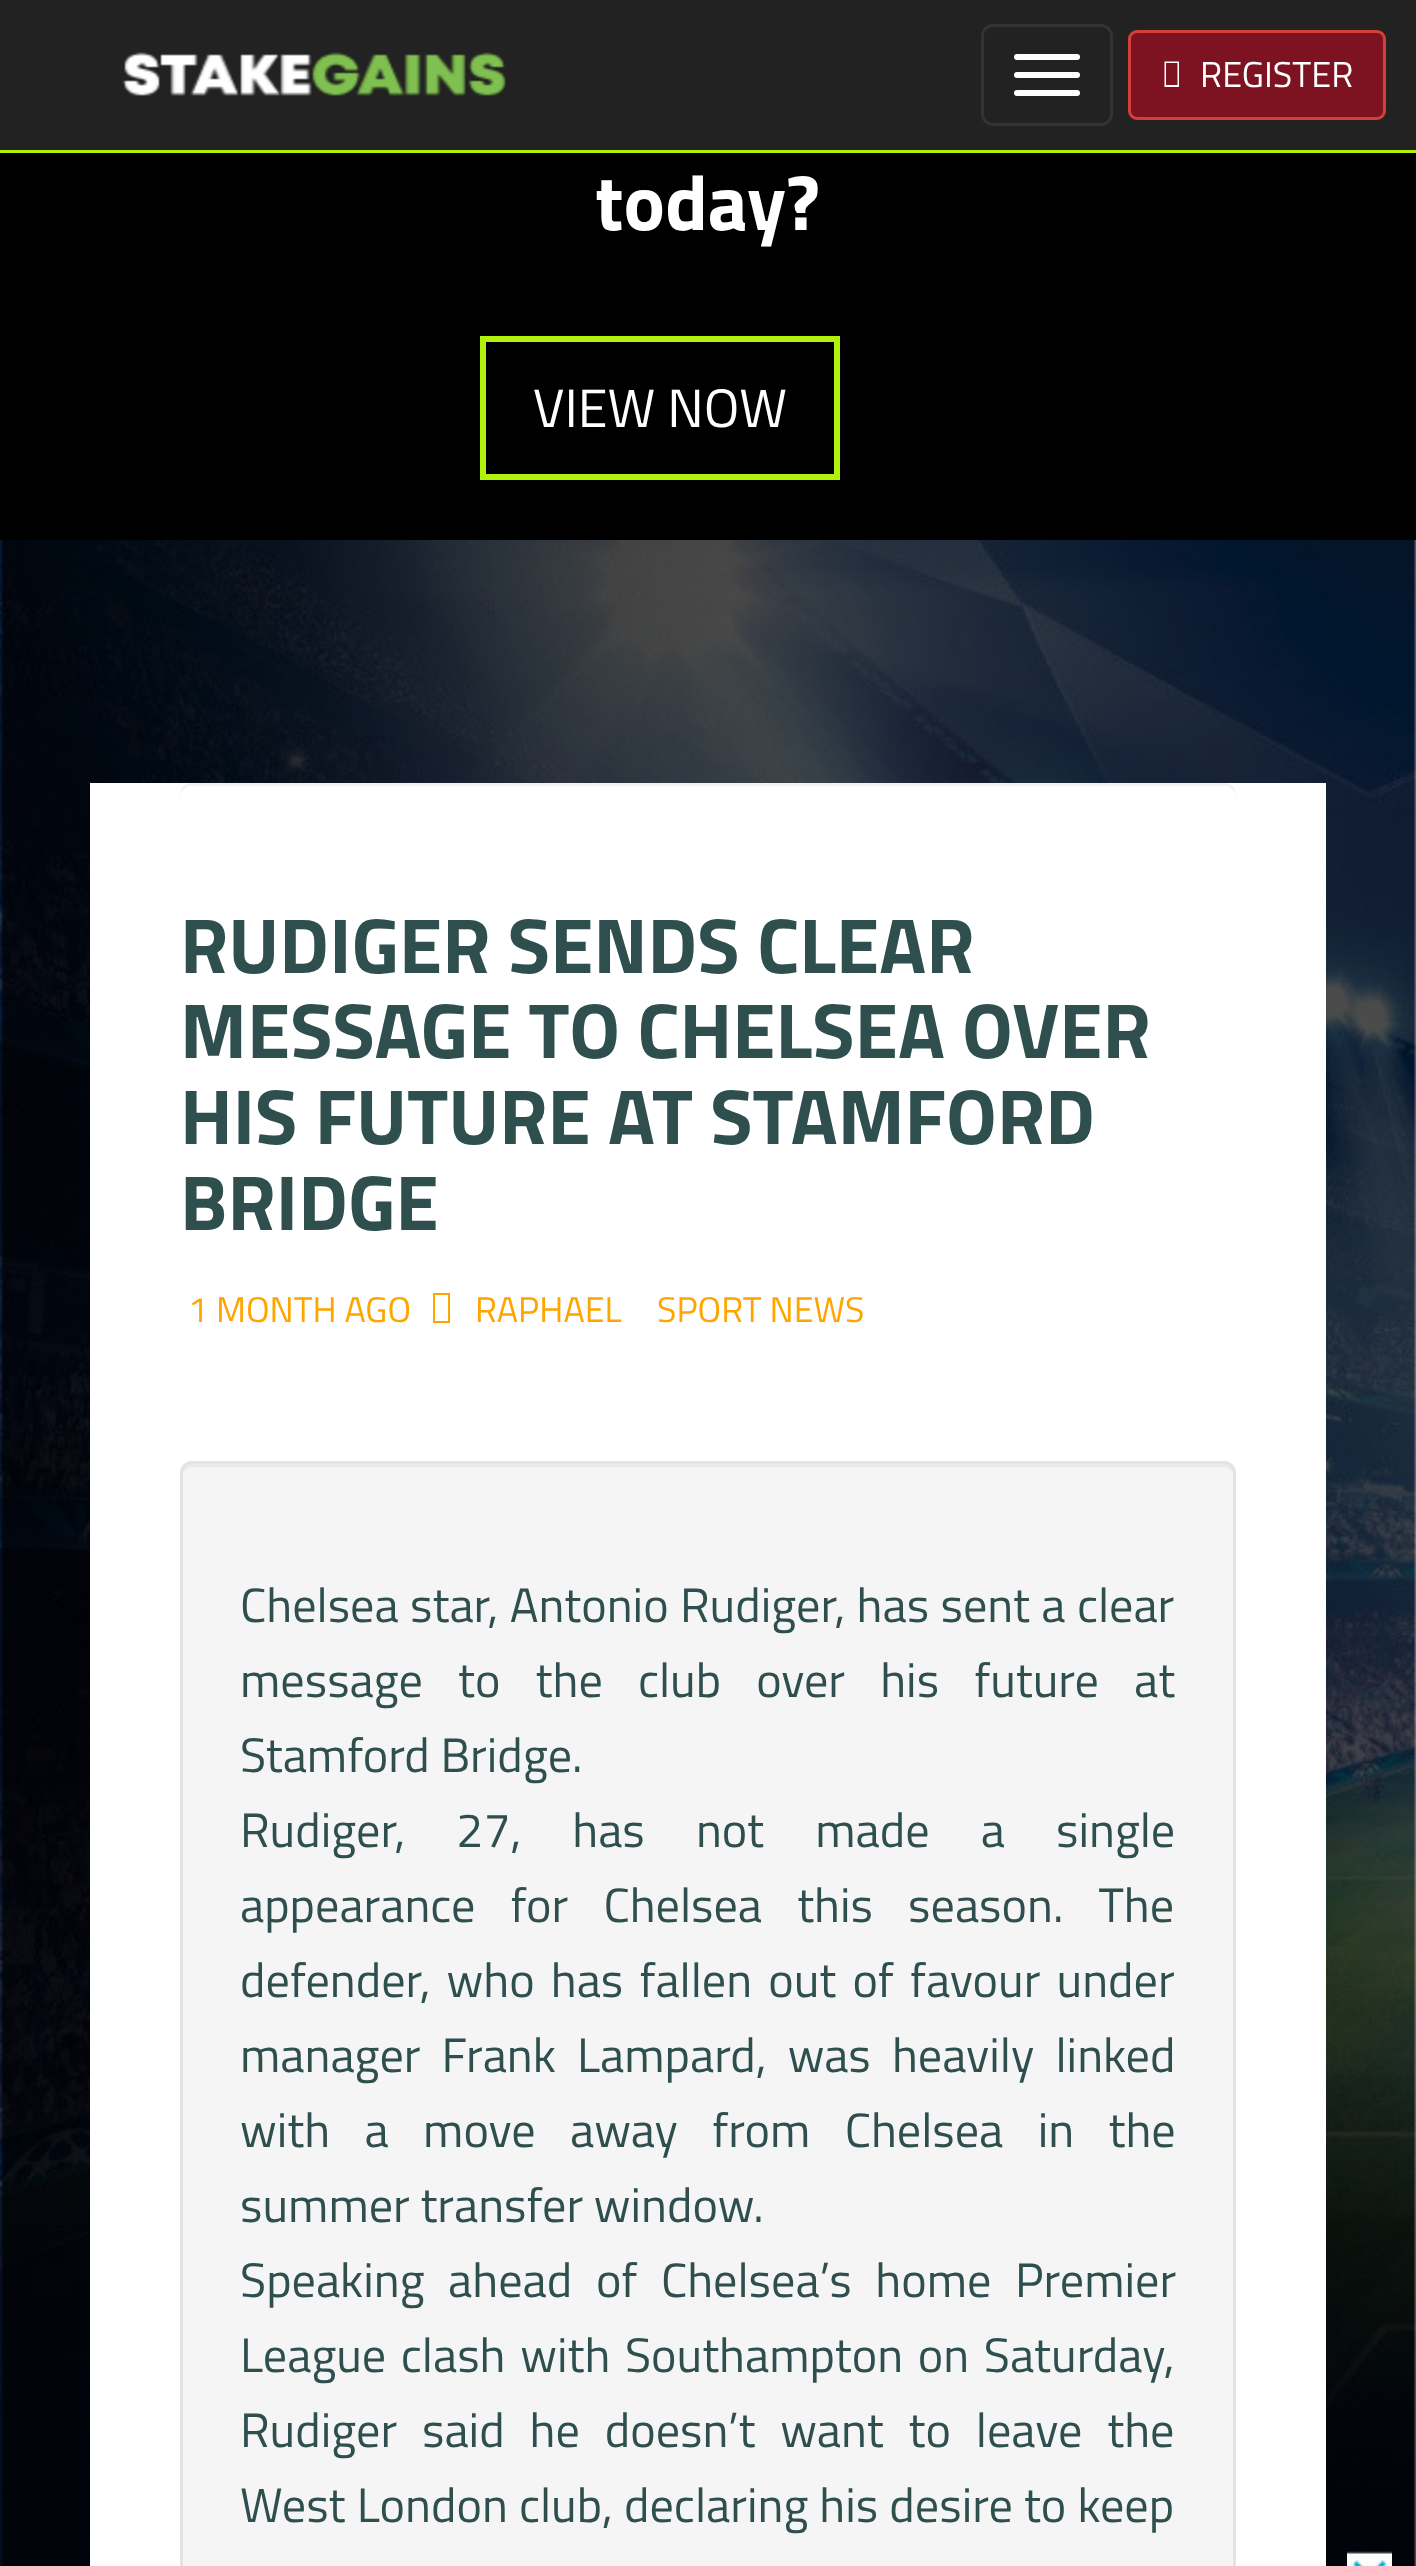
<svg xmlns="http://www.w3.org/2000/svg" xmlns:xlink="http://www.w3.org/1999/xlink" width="1416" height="2566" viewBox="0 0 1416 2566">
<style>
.cls-1{font:36px Titillium Web;fill:#ffffff}
.cls-2{font:bold 78px Titillium Web;fill:#ffffff}
.cls-3{font:54px Titillium Web;fill:#ffffff}
.cls-4{font:bold 78px Titillium Web;fill:#2f4f4f}
.cls-5{font:35.75px Titillium Web;fill:#ffa500}
.cls-6{font:48.25px Titillium Web;fill:#2f4f4f}
</style>
<rect width="100%" height="100%" fill="#ffffff"/>
<image xlink:href="image0.png" x="0" y="540" width="1416" height="2026"/>
<rect fill="#222222" x="0" y="0" width="1416" height="150"/>
<rect fill="#b1f10c" x="0" y="150" width="1416" height="3"/>
<image xlink:href="image1.png" x="122" y="52" width="384" height="44"/>
<rect fill="none" stroke="#333333" stroke-width="3" x="982.5" y="25.5" width="129" height="99" rx="10.5"/>
<rect fill="#ffffff" x="1014" y="54" width="66" height="6" rx="3"/>
<rect fill="#ffffff" x="1014" y="72" width="66" height="6" rx="3"/>
<rect fill="#ffffff" x="1014" y="90" width="66" height="6" rx="3"/>
<rect fill="#7d1221" stroke="#d43f3a" stroke-width="3" x="1129.5" y="31.5" width="255" height="87" rx="7.5"/>
<path fill="#ffffff" d="M1164.5 87V61.5H1179V87ZM1166 85H1177.5V63H1166Z"/>
<rect fill="#000000" x="0" y="153" width="1416" height="387"/>
<rect fill="none" stroke="#b1f10c" stroke-width="6" x="483" y="339" width="354" height="138"/>
<rect fill="#ffffff" x="90" y="783" width="1236" height="1783"/>
<path fill="#f2f2f2" d="M192 786H1224C1231 786 1236 791 1236 798V795C1236 788 1231 783 1224 783H192C185 783 180 788 180 795V798C180 791 185 786 192 786Z"/>
<path fill="#ffa500" d="M433 1323V1293H450V1323ZM435 1321H448V1295H435Z"/>
<rect fill="#f5f5f5" x="180" y="1461" width="1056" height="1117" rx="12"/>
<path fill="#e9e9e9" d="M192 1467H1224C1229 1467 1233 1471 1233 1476V1473C1233 1468 1229 1464 1224 1464H192C187 1464 183 1468 183 1473V1476C183 1471 187 1467 192 1467Z"/>
<rect fill="none" stroke="#e3e3e3" stroke-width="3" x="181.5" y="1462.5" width="1053" height="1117" rx="10.5"/>
<image xlink:href="image2.png" x="1347" y="2551" width="45" height="15"/>
<text class="cls-1" x="1200" y="87">REGISTER</text>
<text class="cls-2" x="595" y="230">today?</text>
<text class="cls-3" x="533" y="427">VIEW NOW</text>
<text class="cls-4"><tspan x="180" y="973">RUDIGER SENDS CLEAR</tspan><tspan x="180" y="1058">MESSAGE TO CHELSEA OVER</tspan><tspan x="180" y="1144">HIS FUTURE AT STAMFORD</tspan><tspan x="180" y="1230">BRIDGE</tspan></text>
<text class="cls-5" x="188" y="1322">1 MONTH AGO</text>
<text class="cls-5" x="475" y="1322">RAPHAEL</text>
<text class="cls-5" x="657" y="1322">SPORT NEWS</text>
<text class="cls-6"><tspan x="240" y="1622" word-spacing="0.75">Chelsea star, Antonio Rudiger, has sent a clear</tspan><tspan x="240" y="1697" word-spacing="24.5">message to the club over his future at</tspan><tspan x="240" y="1772">Stamford Bridge.</tspan><tspan x="240" y="1847" word-spacing="40.5">Rudiger, 27, has not made a single</tspan><tspan x="240" y="1922" word-spacing="24.5">appearance for Chelsea this season. The</tspan><tspan x="240" y="1997" word-spacing="5.5">defender, who has fallen out of favour under</tspan><tspan x="240" y="2072" word-spacing="10.5">manager Frank Lampard, was heavily linked</tspan><tspan x="240" y="2147" word-spacing="23.75">with a move away from Chelsea in the</tspan><tspan x="240" y="2222">summer transfer window.</tspan><tspan x="240" y="2297" word-spacing="13">Speaking ahead of Chelsea’s home Premier</tspan><tspan x="240" y="2372" word-spacing="4">League clash with Southampton on Saturday,</tspan><tspan x="240" y="2447" word-spacing="14.25">Rudiger said he doesn’t want to leave the</tspan><tspan x="240" y="2522" word-spacing="0.5">West London club, declaring his desire to keep</tspan></text>
</svg>
